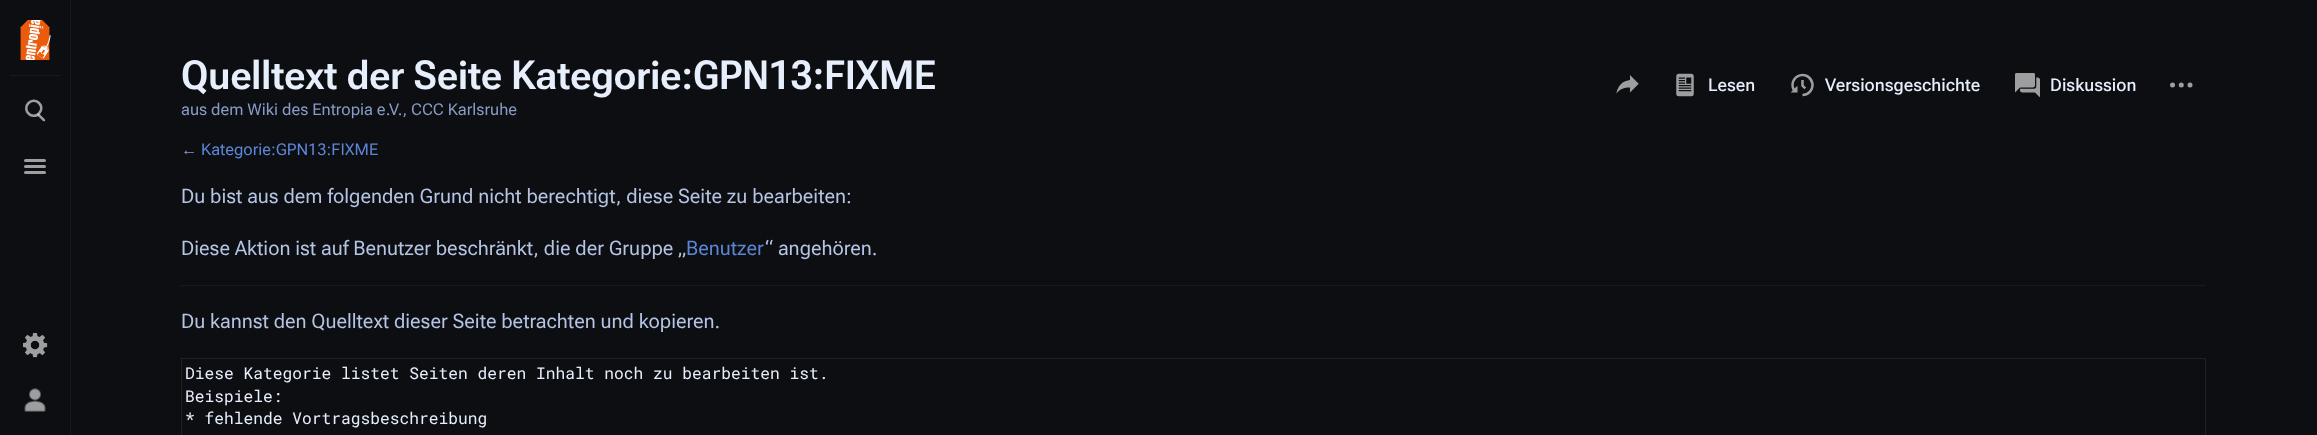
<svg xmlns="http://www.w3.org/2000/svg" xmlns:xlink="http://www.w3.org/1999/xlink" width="2317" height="435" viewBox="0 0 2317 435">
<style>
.cls-1{font:600 40px Roboto Flex;fill:#e8effc}
.cls-2{font:16.25px 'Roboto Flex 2';fill:#879bc5}
.cls-3{font:500 17.5px Roboto Flex;fill:#e8effc}
.cls-4{font:16.25px Liberation Sans;fill:#879bc5}
.cls-5{font:16.25px 'Roboto Flex 2';fill:#5c85d6}
.cls-6{font:20px Roboto Flex;fill:#b5c4e3}
.cls-7{font:20px Roboto Flex;fill:#5c85d6}
.cls-8{font:16.25px Roboto Mono;fill:#e8effc}
</style>
<rect width="100%" height="100%" fill="#0c0e12"/>
<rect fill="#181a1e" x="70" y="0" width="1" height="435"/>
<rect fill="#181a1e" x="10" y="75" width="50" height="1"/>
<image xlink:href="image0.png" x="20" y="20" width="31" height="40"/>
<path fill="#9e9fa0" d="M37.5 114C39 112.5 41.5 116 42 116.5C43 117.5 46 119.5 45 121C43.5 122.5 41 119 40.5 118.5C39.5 117.5 36.5 115.5 37.5 114Z"/>
<path fill="none" stroke="#ffffff" stroke-opacity="0.6" stroke-width="2.5" d="M28.5 103C35.5 96 46 106.5 39 113.5C32 120.5 21.5 110 28.5 103Z"/>
<rect fill="#9e9fa0" x="24" y="159" width="22" height="3" rx="1.5"/>
<rect fill="#9e9fa0" x="24" y="165" width="22" height="3" rx="1.5"/>
<rect fill="#9e9fa0" x="24" y="171" width="22" height="3" rx="1.5"/>
<image xlink:href="image1.png" x="23" y="333" width="25" height="25"/>
<image xlink:href="image2.png" x="24" y="388" width="22" height="24"/>
<image xlink:href="image3.png" x="1616" y="75" width="23" height="19"/>
<image xlink:href="image4.png" x="1676" y="73" width="18" height="24"/>
<image xlink:href="image5.png" x="1790" y="73" width="24" height="24"/>
<image xlink:href="image6.png" x="2015" y="73" width="25" height="24"/>
<image xlink:href="image7.png" x="2170" y="82" width="23" height="6"/>
<rect fill="#181a1e" x="181" y="285" width="2025" height="1"/>
<rect fill="none" stroke="#1f2125" x="181.5" y="358.5" width="2024" height="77"/>
<text class="cls-1" x="181" y="89">Quelltext der Seite Kategorie:GPN13:FIXME</text>
<text class="cls-2" x="181" y="115">aus dem Wiki des Entropia e.V., CCC Karlsruhe</text>
<text class="cls-3" x="1708" y="91">Lesen</text>
<text class="cls-3" x="1825" y="91">Versionsgeschichte</text>
<text class="cls-3" x="2050" y="91">Diskussion</text>
<text class="cls-4" x="181" y="155">←</text>
<text class="cls-5" x="201" y="155">Kategorie:GPN13:FIXME</text>
<text class="cls-6" x="181" y="203">Du bist aus dem folgenden Grund nicht berechtigt, diese Seite zu bearbeiten:</text>
<text class="cls-6" x="181" y="255">Diese Aktion ist auf Benutzer beschränkt, die der Gruppe „</text>
<text class="cls-7" x="686" y="255">Benutzer</text>
<text class="cls-6" x="765" y="255">“ angehören.</text>
<text class="cls-6" x="181" y="328">Du kannst den Quelltext dieser Seite betrachten und kopieren.</text>
<text class="cls-8"><tspan x="185" y="379">Diese Kategorie listet Seiten deren Inhalt noch zu bearbeiten ist.</tspan><tspan x="185" y="402">Beispiele:</tspan><tspan x="185" y="424">* fehlende Vortragsbeschreibung</tspan></text>
</svg>
